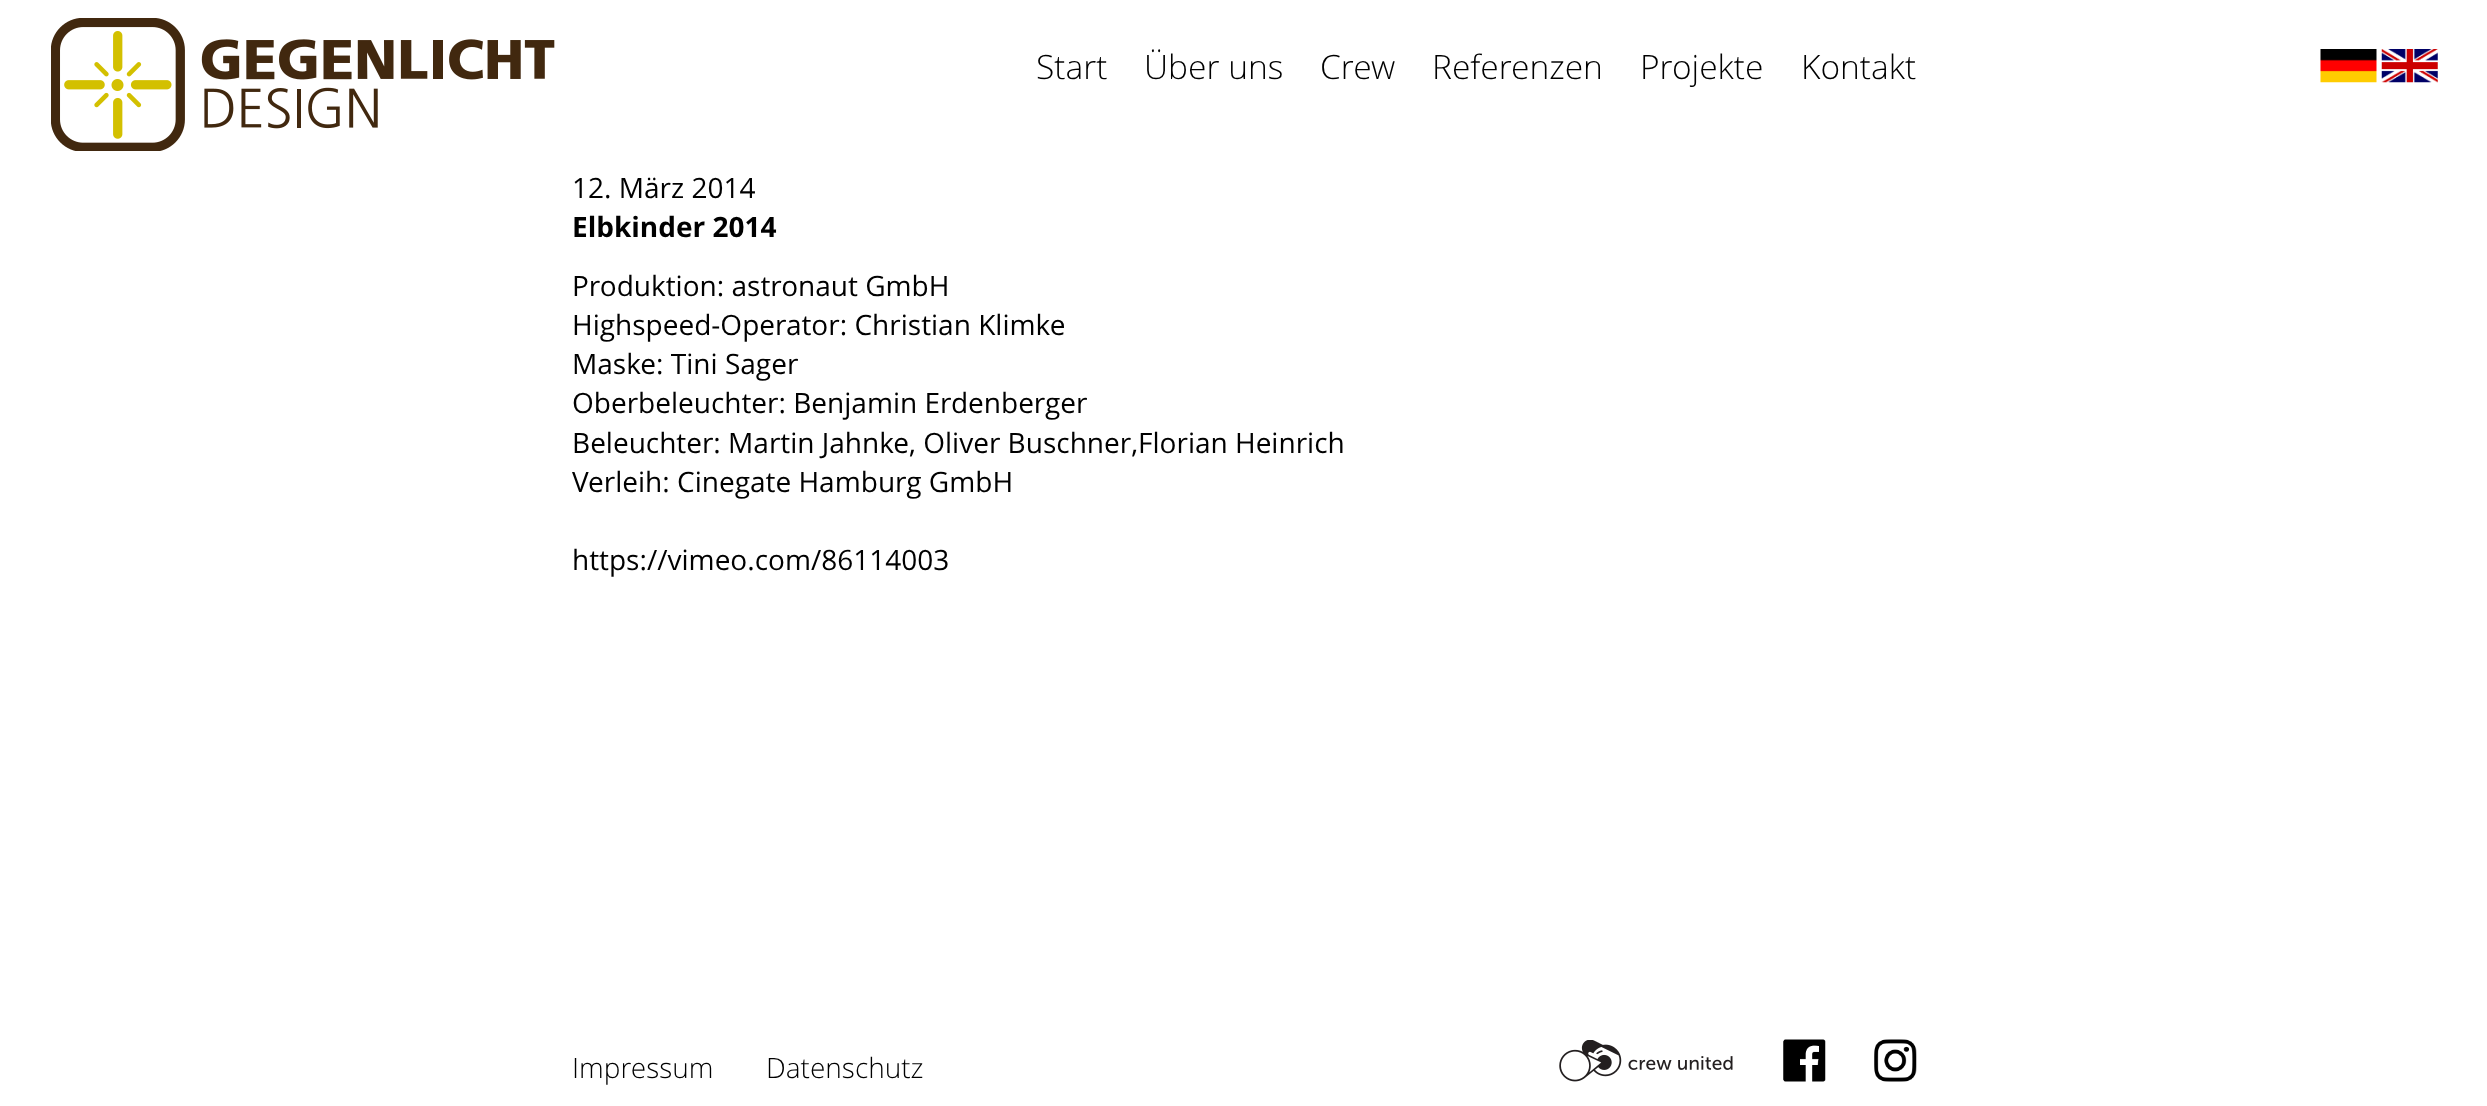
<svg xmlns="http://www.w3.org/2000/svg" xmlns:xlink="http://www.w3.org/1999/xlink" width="2487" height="1106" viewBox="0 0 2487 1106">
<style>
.cls-1{font:300 33.5px Open Sans;fill:#000000}
.cls-2{font:28px Open Sans;fill:#000000}
.cls-3{font:bold 28px Open Sans;fill:#000000}
.cls-4{font:300 28px Open Sans;fill:#000000}
</style>
<rect width="100%" height="100%" fill="#ffffff"/>
<image xlink:href="image0.png" x="51" y="18" width="504" height="133"/>
<image xlink:href="image1.png" x="2320" y="49" width="57" height="34"/>
<image xlink:href="image2.png" x="2381" y="49" width="57" height="34"/>
<image xlink:href="image3.png" x="1559" y="1040" width="174" height="42"/>
<image xlink:href="image4.png" x="1783" y="1039" width="43" height="43"/>
<image xlink:href="image5.png" x="1874" y="1039" width="43" height="43"/>
<text class="cls-1" x="1036" y="79">Start</text>
<text class="cls-1" x="1144" y="79">Über uns</text>
<text class="cls-1" x="1320" y="79">Crew</text>
<text class="cls-1" x="1432" y="79">Referenzen</text>
<text class="cls-1" x="1640" y="79">Projekte</text>
<text class="cls-1" x="1801" y="79">Kontakt</text>
<text class="cls-2" x="572" y="198">12. März 2014</text>
<text class="cls-3" x="572" y="237">Elbkinder 2014</text>
<text class="cls-2"><tspan x="572" y="296">Produktion: astronaut GmbH</tspan><tspan x="572" y="335">Highspeed-Operator: Christian Klimke</tspan><tspan x="572" y="374">Maske: Tini Sager</tspan><tspan x="572" y="413">Oberbeleuchter: Benjamin Erdenberger</tspan><tspan x="572" y="453">Beleuchter: Martin Jahnke, Oliver Buschner,Florian Heinrich</tspan><tspan x="572" y="492">Verleih: Cinegate Hamburg GmbH</tspan></text>
<text class="cls-2" x="572" y="570">https://vimeo.com/86114003</text>
<text class="cls-4" x="572" y="1078">Impressum</text>
<text class="cls-4" x="766" y="1078">Datenschutz</text>
</svg>
